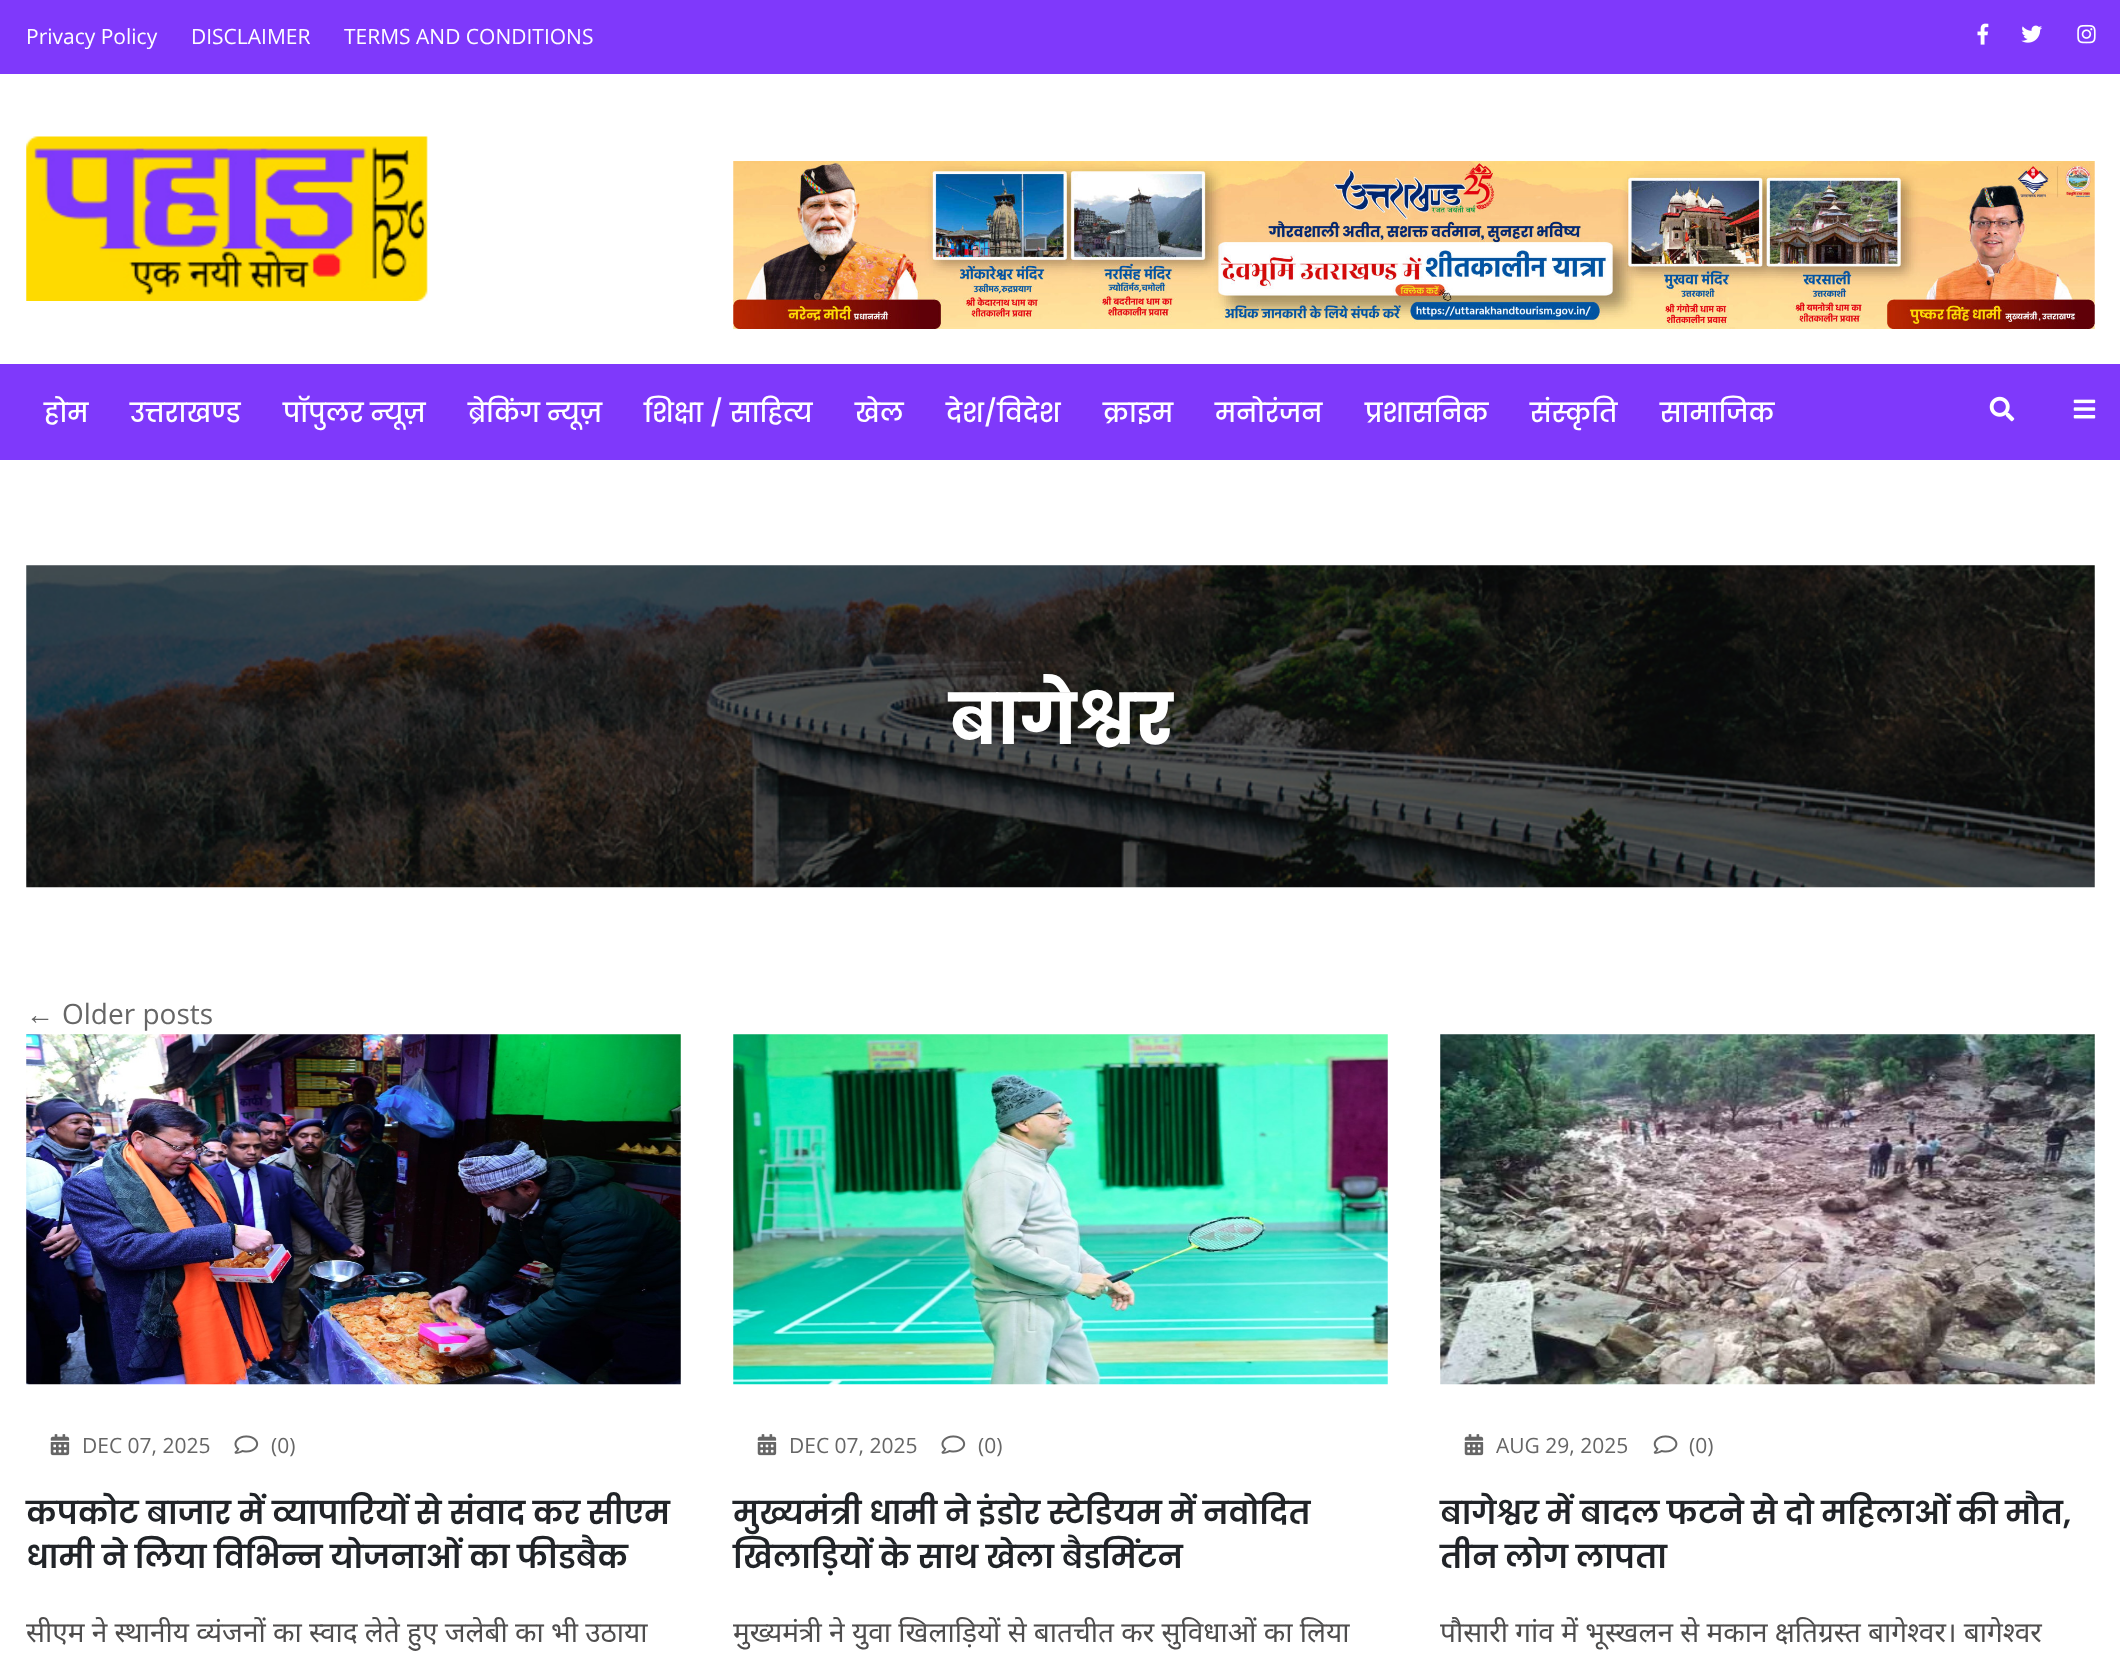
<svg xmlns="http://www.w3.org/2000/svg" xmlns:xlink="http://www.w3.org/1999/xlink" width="2120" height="1662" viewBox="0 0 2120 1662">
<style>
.cls-1{font:21px Open Sans;fill:#ffffff}
.cls-2{font:500 26.25px Poppins;fill:#ffffff}
.cls-3{font:bold 70px Poppins;fill:#ffffff}
.cls-4{font:28px Liberation Sans;fill:#666666}
.cls-5{font:28px Open Sans;fill:#666666}
.cls-6{font:21px Open Sans;fill:#666666}
.cls-7{font:600 31.5px Poppins;fill:#212428}
.cls-8{font:28px Noto Sans;fill:#4e4d4d}
</style>
<rect width="100%" height="100%" fill="#ffffff"/>
<rect fill="#7f39fb" x="0" y="0" width="2120" height="74"/>
<image xlink:href="image0.png" x="1977" y="23" width="12" height="22"/>
<image xlink:href="image1.png" x="2021" y="25" width="22" height="18"/>
<image xlink:href="image2.png" x="2077" y="24" width="19" height="20"/>
<image xlink:href="image3.png" x="26" y="136" width="402" height="165"/>
<image xlink:href="image4.png" x="733" y="161" width="1362" height="168"/>
<rect fill="#7f39fb" x="0" y="364" width="2120" height="96"/>
<image xlink:href="image5.png" x="1989" y="396" width="26" height="26"/>
<image xlink:href="image6.png" x="2073" y="399" width="23" height="20"/>
<image xlink:href="image7.png" x="26" y="565" width="2069" height="323"/>
<image xlink:href="image8.png" x="26" y="1034" width="655" height="351"/>
<image xlink:href="image9.png" x="50" y="1434" width="20" height="22"/>
<image xlink:href="image10.png" x="234" y="1435" width="25" height="19"/>
<image xlink:href="image11.png" x="733" y="1034" width="655" height="351"/>
<image xlink:href="image9.png" x="757" y="1434" width="20" height="22"/>
<image xlink:href="image10.png" x="941" y="1435" width="25" height="19"/>
<image xlink:href="image12.png" x="1440" y="1034" width="655" height="351"/>
<image xlink:href="image9.png" x="1464" y="1434" width="20" height="22"/>
<image xlink:href="image13.png" x="1653" y="1435" width="25" height="19"/>
<text class="cls-1" x="26" y="44">Privacy Policy</text>
<text class="cls-1" x="191" y="44">DISCLAIMER</text>
<text class="cls-1" x="344" y="44">TERMS AND CONDITIONS</text>
<text class="cls-2" x="44" y="422">होम</text>
<text class="cls-2" x="130" y="422">उत्तराखण्ड</text>
<text class="cls-2" x="283" y="422">पॉपुलर न्यूज़</text>
<text class="cls-2" x="468" y="422">ब्रेकिंग न्यूज़</text>
<text class="cls-2" x="644" y="422">शिक्षा / साहित्य</text>
<text class="cls-2" x="855" y="422">खेल</text>
<text class="cls-2" x="946" y="422">देश/विदेश</text>
<text class="cls-2" x="1103" y="422">क्राइम</text>
<text class="cls-2" x="1215" y="422">मनोरंजन</text>
<text class="cls-2" x="1365" y="422">प्रशासनिक</text>
<text class="cls-2" x="1530" y="422">संस्कृति</text>
<text class="cls-2" x="1660" y="422">सामाजिक</text>
<text class="cls-3" x="949" y="744">बागेश्वर</text>
<text class="cls-4" x="26" y="1024">←</text>
<text class="cls-5" x="62" y="1024">Older posts</text>
<text class="cls-6" x="82" y="1453">DEC 07, 2025</text>
<text class="cls-6" x="271" y="1453">(0)</text>
<text class="cls-7"><tspan x="26" y="1524">कपकोट बाजार में व्यापारियों से संवाद कर सीएम</tspan><tspan x="26" y="1568">धामी ने लिया विभिन्न योजनाओं का फीडबैक</tspan></text>
<text class="cls-8" x="26" y="1642">सीएम ने स्थानीय व्यंजनों का स्वाद लेते हुए जलेबी का भी उठाया</text>
<text class="cls-6" x="789" y="1453">DEC 07, 2025</text>
<text class="cls-6" x="978" y="1453">(0)</text>
<text class="cls-7"><tspan x="733" y="1524">मुख्यमंत्री धामी ने इंडोर स्टेडियम में नवोदित</tspan><tspan x="733" y="1568">खिलाड़ियों के साथ खेला बैडमिंटन</tspan></text>
<text class="cls-8" x="733" y="1642">मुख्यमंत्री ने युवा खिलाड़ियों से बातचीत कर सुविधाओं का लिया</text>
<text class="cls-6" x="1496" y="1453">AUG 29, 2025</text>
<text class="cls-6" x="1689" y="1453">(0)</text>
<text class="cls-7"><tspan x="1440" y="1524">बागेश्वर में बादल फटने से दो महिलाओं की मौत,</tspan><tspan x="1440" y="1568">तीन लोग लापता</tspan></text>
<text class="cls-8" x="1440" y="1642">पौसारी गांव में भूस्खलन से मकान क्षतिग्रस्त बागेश्वर। बागेश्वर</text>
</svg>
